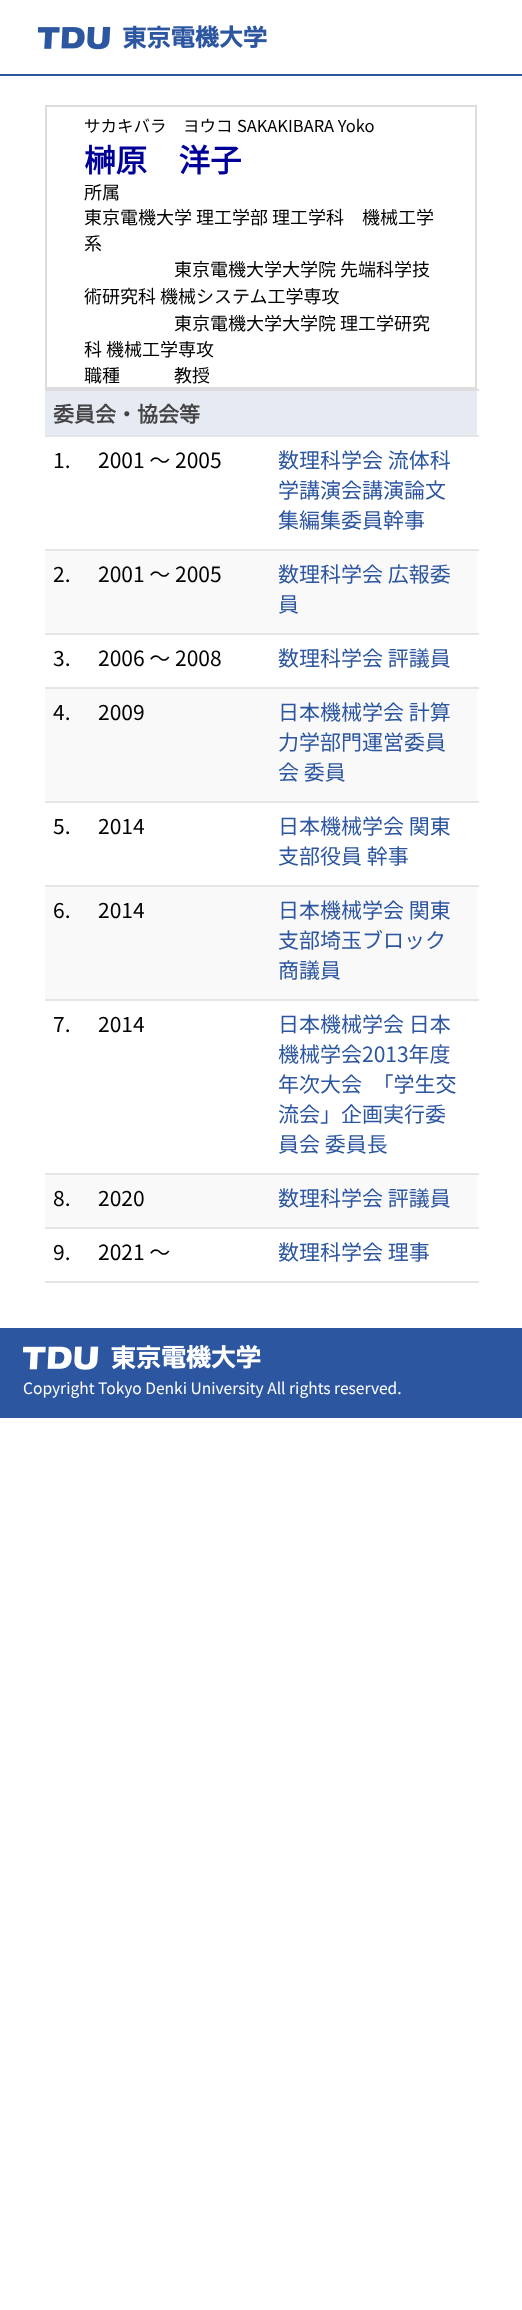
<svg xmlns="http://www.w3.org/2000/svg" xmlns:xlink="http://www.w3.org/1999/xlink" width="522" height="2310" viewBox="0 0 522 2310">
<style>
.cls-1{font:100 16.5px Noto Sans JP;fill:#000000}
.cls-2{font:bold 31.5px Noto Sans JP;fill:#000099}
.cls-3{font:100 18px Noto Sans JP;fill:#000000}
.cls-4{font:bold 21px Noto Sans JP;fill:#444444}
.cls-5{font:100 21px Noto Sans JP;fill:#000000}
.cls-6{font:100 21px Noto Sans JP;fill:#2d56a0}
.cls-7{font:100 15.6px Noto Sans JP;fill:#ffffff}
</style>
<rect width="100%" height="100%" fill="#ffffff"/>
<rect fill="#2d56a0" x="0" y="74" width="522" height="2"/>
<image xlink:href="image0.png" x="38" y="25" width="229" height="25"/>
<rect fill="none" stroke="#dddddd" stroke-width="2" x="46" y="106" width="430" height="282"/>
<rect fill="#e6ebf3" x="45" y="391" width="432" height="44"/>
<rect fill="#dddddd" x="45" y="389" width="434" height="2"/>
<rect fill="#e5e5e5" x="45" y="435" width="434" height="2"/>
<rect fill="#e5e5e5" x="45" y="549" width="434" height="2"/>
<rect fill="#f9f9f9" x="45" y="551" width="432" height="82"/>
<rect fill="#e5e5e5" x="45" y="633" width="434" height="2"/>
<rect fill="#e5e5e5" x="45" y="687" width="434" height="2"/>
<rect fill="#f9f9f9" x="45" y="689" width="432" height="112"/>
<rect fill="#e5e5e5" x="45" y="801" width="434" height="2"/>
<rect fill="#e5e5e5" x="45" y="885" width="434" height="2"/>
<rect fill="#f9f9f9" x="45" y="887" width="432" height="112"/>
<rect fill="#e5e5e5" x="45" y="999" width="434" height="2"/>
<rect fill="#e5e5e5" x="45" y="1173" width="434" height="2"/>
<rect fill="#f9f9f9" x="45" y="1175" width="432" height="52"/>
<rect fill="#e5e5e5" x="45" y="1227" width="434" height="2"/>
<rect fill="#e5e5e5" x="45" y="1281" width="434" height="2"/>
<rect fill="#2d56a0" x="0" y="1328" width="522" height="90"/>
<image xlink:href="image1.png" x="23" y="1344" width="238" height="26"/>
<text class="cls-1" x="84" y="132">サカキバラ　ヨウコ</text>
<text class="cls-1" x="237" y="132">SAKAKIBARA Yoko</text>
<text class="cls-2" x="84" y="172">榊原　洋子</text>
<text class="cls-3"><tspan x="84" y="199">所属</tspan><tspan x="84" y="224">東京電機大学 理工学部 理工学科　機械工学</tspan><tspan x="84" y="250">系</tspan></text>
<text class="cls-3" x="174" y="276">東京電機大学大学院 先端科学技</text>
<text class="cls-3" x="84" y="303">術研究科 機械システム工学専攻</text>
<text class="cls-3" x="174" y="330">東京電機大学大学院 理工学研究</text>
<text class="cls-3"><tspan x="84" y="356">科 機械工学専攻</tspan><tspan x="84" y="382">職種</tspan></text>
<text class="cls-3" x="174" y="382">教授</text>
<text class="cls-4" x="53" y="422">委員会・協会等</text>
<text class="cls-5" x="53" y="468">1.</text>
<text class="cls-5" x="98" y="468">2001 ～ 2005</text>
<text class="cls-6"><tspan x="278" y="468">数理科学会 流体科</tspan><tspan x="278" y="498">学講演会講演論文</tspan><tspan x="278" y="528">集編集委員幹事</tspan></text>
<text class="cls-5" x="53" y="582">2.</text>
<text class="cls-5" x="98" y="582">2001 ～ 2005</text>
<text class="cls-6"><tspan x="278" y="582">数理科学会 広報委</tspan><tspan x="278" y="612">員</tspan></text>
<text class="cls-5" x="53" y="666">3.</text>
<text class="cls-5" x="98" y="666">2006 ～ 2008</text>
<text class="cls-6" x="278" y="666">数理科学会 評議員</text>
<text class="cls-5" x="53" y="720">4.</text>
<text class="cls-5" x="98" y="720">2009</text>
<text class="cls-6"><tspan x="278" y="720">日本機械学会 計算</tspan><tspan x="278" y="750">力学部門運営委員</tspan><tspan x="278" y="780">会 委員</tspan></text>
<text class="cls-5" x="53" y="834">5.</text>
<text class="cls-5" x="98" y="834">2014</text>
<text class="cls-6"><tspan x="278" y="834">日本機械学会 関東</tspan><tspan x="278" y="864">支部役員 幹事</tspan></text>
<text class="cls-5" x="53" y="918">6.</text>
<text class="cls-5" x="98" y="918">2014</text>
<text class="cls-6"><tspan x="278" y="918">日本機械学会 関東</tspan><tspan x="278" y="948">支部埼玉ブロック</tspan><tspan x="278" y="978">商議員</tspan></text>
<text class="cls-5" x="53" y="1032">7.</text>
<text class="cls-5" x="98" y="1032">2014</text>
<text class="cls-6"><tspan x="278" y="1032">日本機械学会 日本</tspan><tspan x="278" y="1062">機械学会2013年度</tspan><tspan x="278" y="1092">年次大会　「学生交</tspan><tspan x="278" y="1122">流会」企画実行委</tspan><tspan x="278" y="1152">員会 委員長</tspan></text>
<text class="cls-5" x="53" y="1206">8.</text>
<text class="cls-5" x="98" y="1206">2020</text>
<text class="cls-6" x="278" y="1206">数理科学会 評議員</text>
<text class="cls-5" x="53" y="1260">9.</text>
<text class="cls-5" x="98" y="1260">2021 ～</text>
<text class="cls-6" x="278" y="1260">数理科学会 理事</text>
<text class="cls-7" x="23" y="1394">Copyright Tokyo Denki University All rights reserved.</text>
</svg>
